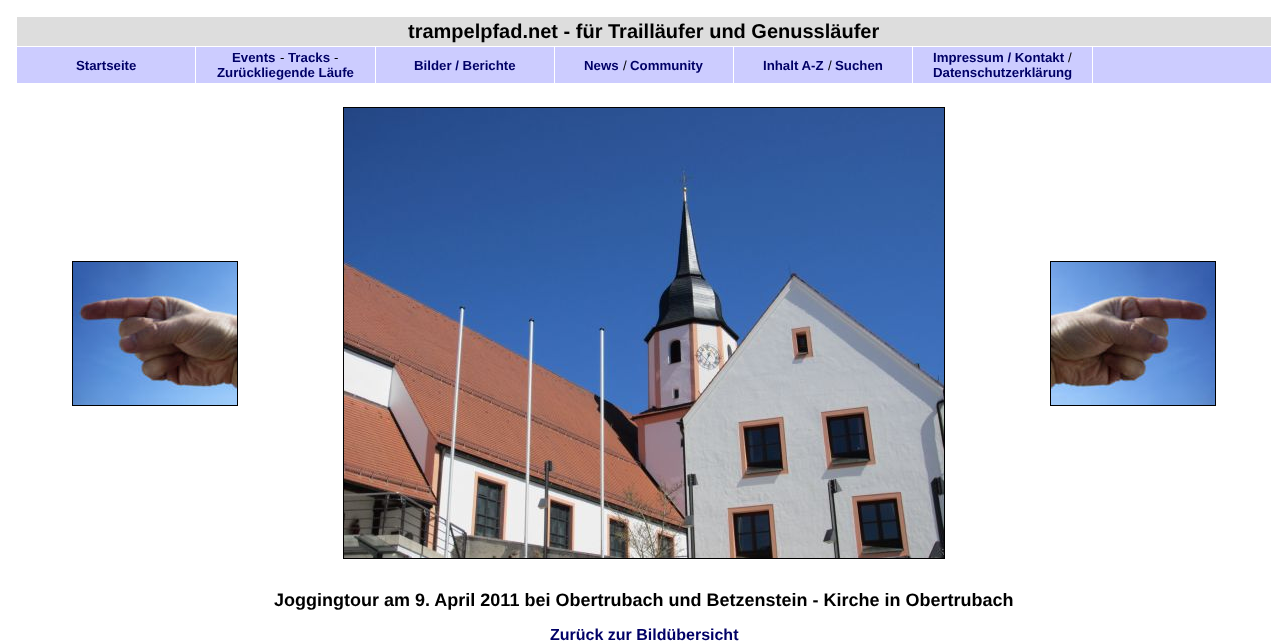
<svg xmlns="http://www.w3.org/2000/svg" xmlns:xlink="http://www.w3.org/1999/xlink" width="1288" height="641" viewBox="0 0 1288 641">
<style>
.cls-1{font:bold 20px Liberation Sans;fill:#000000}
.cls-2{font:bold 13.25px Liberation Sans;fill:#000066}
.cls-3{font:13.25px Liberation Sans;fill:#000000}
.cls-4{font:bold 18px Liberation Sans;fill:#000000}
.cls-5{font:bold 16px Liberation Sans;fill:#000066}
</style>
<rect width="100%" height="100%" fill="#ffffff"/>
<rect fill="#dddddd" x="17" y="17" width="1254" height="29"/>
<rect fill="#ccccff" x="17" y="47" width="178" height="36"/>
<rect fill="#ccccff" x="196" y="47" width="179" height="36"/>
<rect fill="#ccccff" x="376" y="47" width="178" height="36"/>
<rect fill="#ccccff" x="555" y="47" width="178" height="36"/>
<rect fill="#ccccff" x="734" y="47" width="178" height="36"/>
<rect fill="#ccccff" x="913" y="47" width="179" height="36"/>
<rect fill="#ccccff" x="1093" y="47" width="178" height="36"/>
<rect fill="none" stroke="#000000" x="72.5" y="261.5" width="165" height="144"/>
<image xlink:href="image0.png" x="73" y="262" width="164" height="143"/>
<rect fill="none" stroke="#000000" x="343.5" y="107.5" width="601" height="451"/>
<image xlink:href="image1.png" x="344" y="108" width="600" height="450"/>
<rect fill="none" stroke="#000000" x="1050.5" y="261.5" width="165" height="144"/>
<image xlink:href="image2.png" x="1051" y="262" width="164" height="143"/>
<text class="cls-1" x="408" y="38">trampelpfad.net - für Trailläufer und Genussläufer</text>
<text class="cls-2" x="76" y="70">Startseite</text>
<text class="cls-2" x="232" y="62">Events</text>
<text class="cls-3" x="280" y="62">-</text>
<text class="cls-2" x="288" y="62">Tracks</text>
<text class="cls-3" x="334" y="62">-</text>
<text class="cls-2" x="217" y="77">Zurückliegende Läufe</text>
<text class="cls-2" x="414" y="70">Bilder / Berichte</text>
<text class="cls-2" x="584" y="70">News</text>
<text class="cls-3" x="623" y="70">/</text>
<text class="cls-2" x="630" y="70">Community</text>
<text class="cls-2" x="763" y="70">Inhalt A-Z</text>
<text class="cls-3" x="828" y="70">/</text>
<text class="cls-2" x="835" y="70">Suchen</text>
<text class="cls-2" x="933" y="62">Impressum / Kontakt</text>
<text class="cls-3" x="1068" y="62">/</text>
<text class="cls-2" x="933" y="77">Datenschutzerklärung</text>
<text class="cls-4" x="274" y="606">Joggingtour am 9. April 2011 bei Obertrubach und Betzenstein - Kirche in Obertrubach</text>
<text class="cls-5" x="550" y="640">Zurück zur Bildübersicht</text>
</svg>
